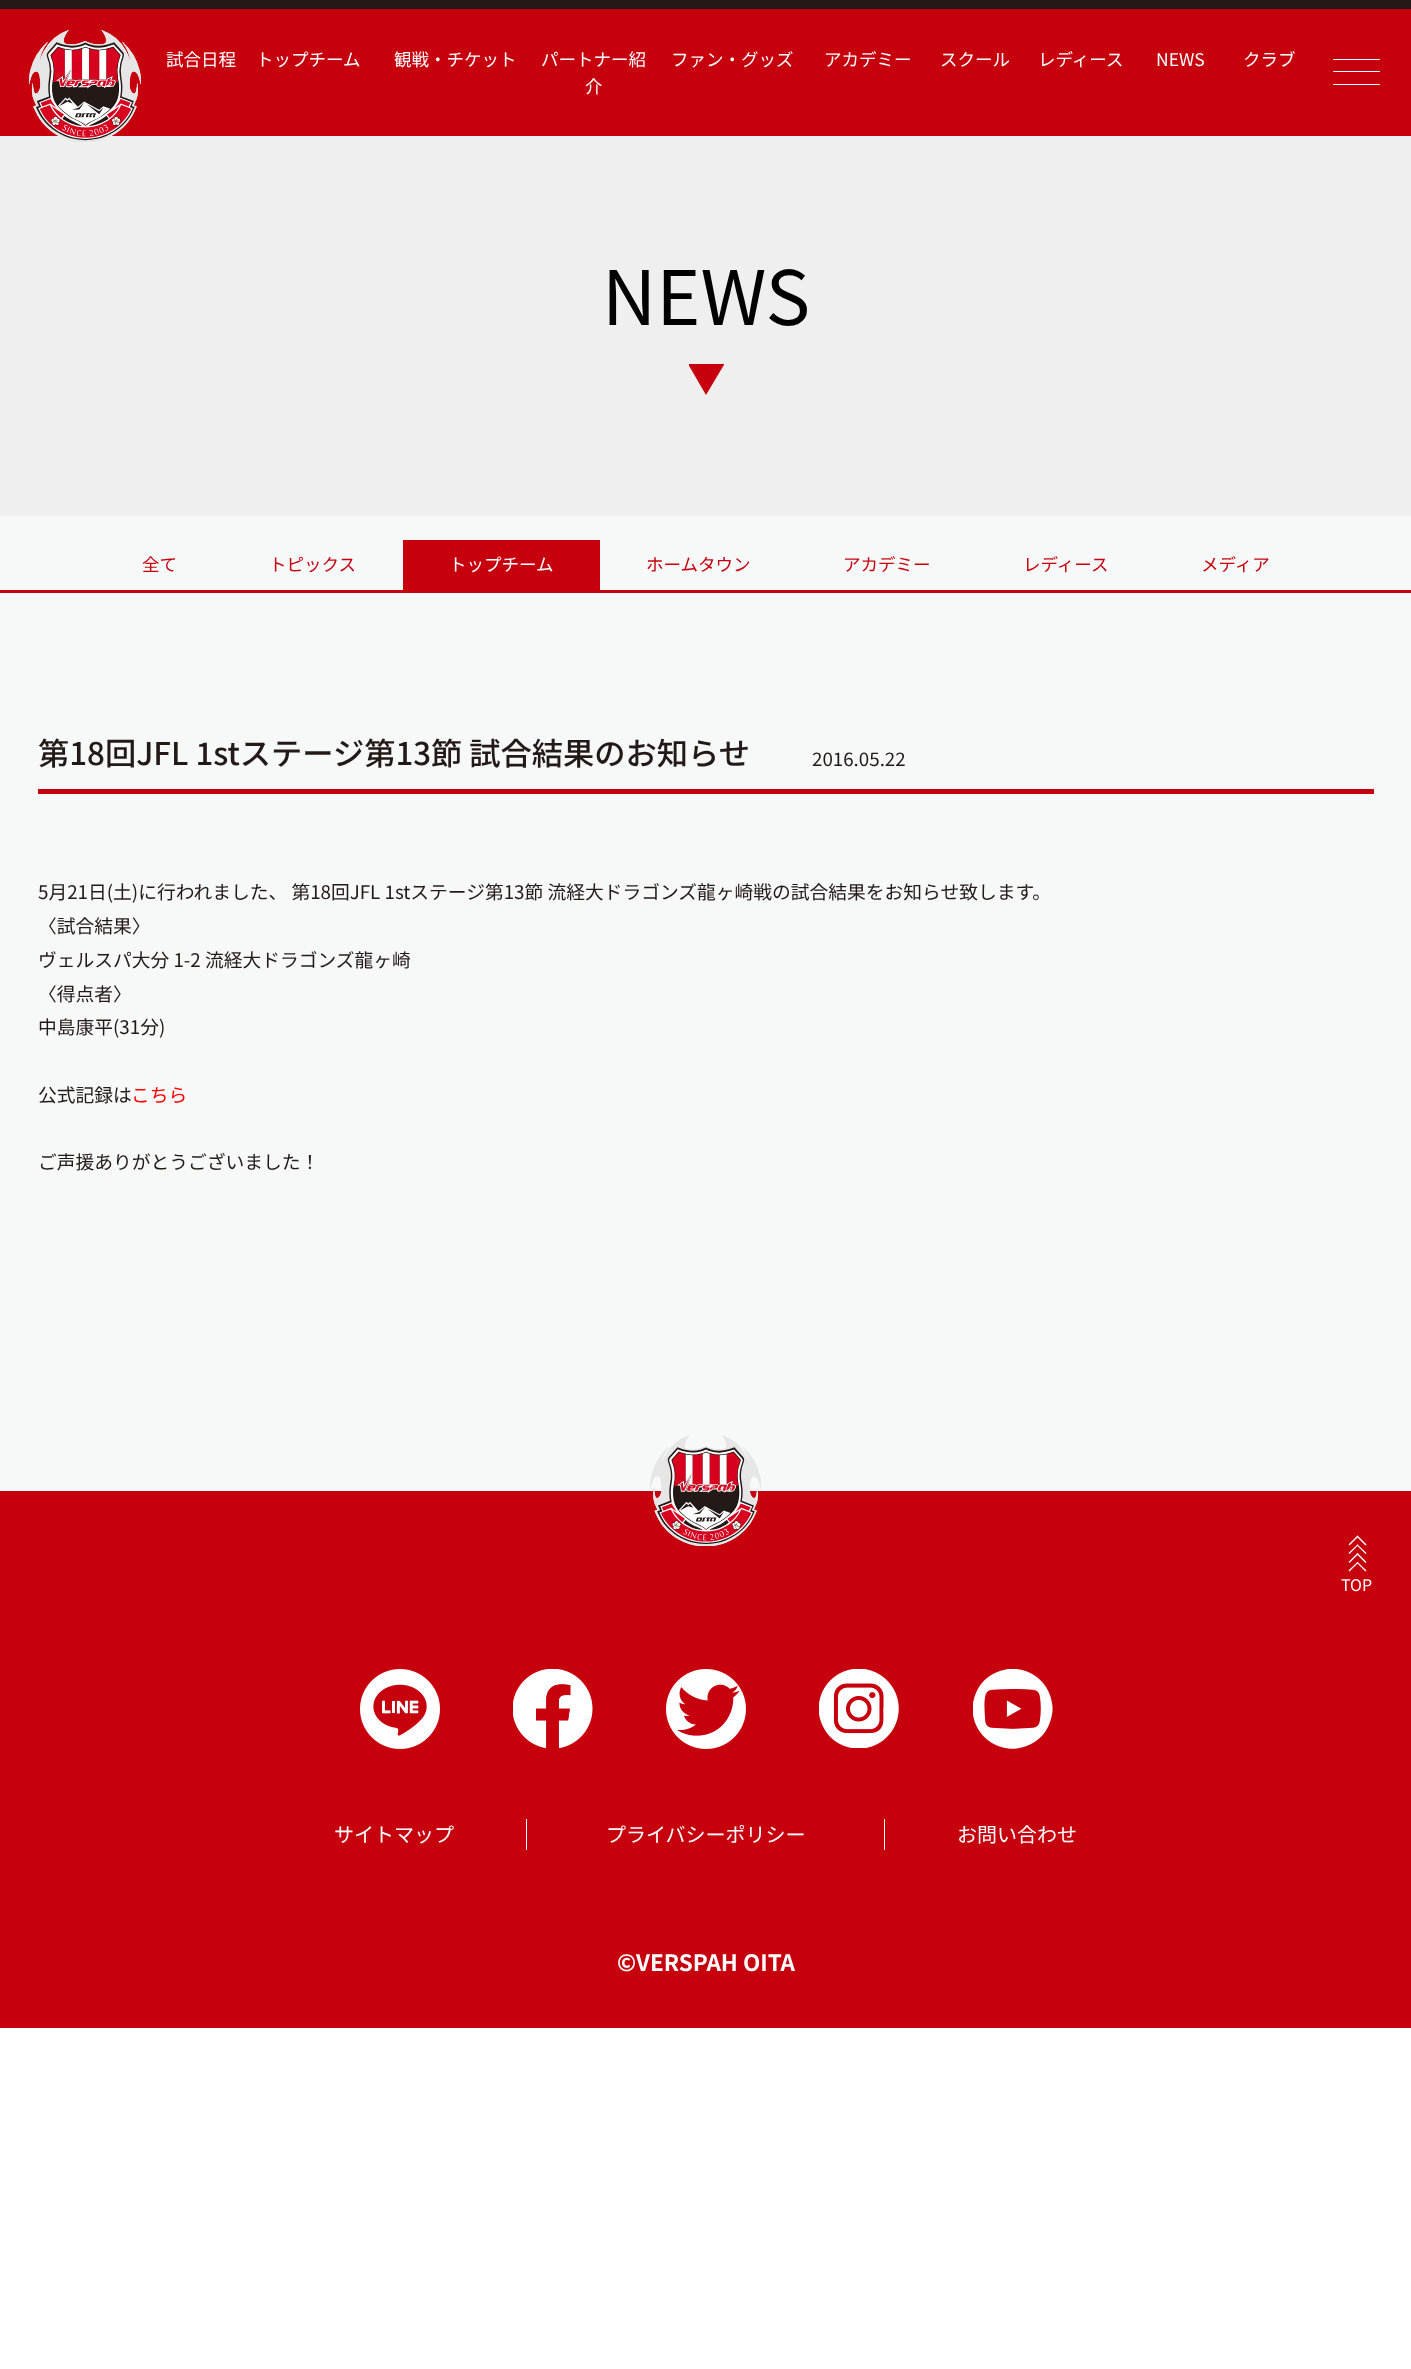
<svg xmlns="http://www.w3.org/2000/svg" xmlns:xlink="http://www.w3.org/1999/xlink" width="1411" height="2369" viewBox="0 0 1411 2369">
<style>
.cls-1{font:17.5px Noto Sans JP;fill:#ffffff}
.cls-2{font:75px Noto Sans JP;fill:#000000}
.cls-3{font:17.5px Noto Sans JP;fill:#c7000d}
.cls-4{font:500 31.25px Noto Sans JP;fill:#231916}
.cls-5{font:18.75px Noto Sans JP;fill:#231916}
.cls-6{font:18.75px Noto Sans JP;fill:#ff0000}
.cls-7{font:16px Noto Sans JP;fill:#ffffff}
.cls-8{font:20px Noto Sans JP;fill:#ffffff}
.cls-9{font:bold 22.5px Noto Sans JP;fill:#ffffff}
</style>
<defs>
<clipPath id="clip1"><rect x="689" y="364" width="35" height="31"/></clipPath>
</defs>
<rect width="100%" height="100%" fill="#ffffff"/>
<rect fill="#231916" x="0" y="0" width="1411" height="9"/>
<rect fill="#c7000d" x="0" y="9" width="1411" height="127"/>
<rect fill="#efefef" x="0" y="136" width="1411" height="380"/>
<image xlink:href="image0.png" x="29" y="30" width="112" height="112"/>
<rect fill="#ffffff" x="1333" y="59" width="47" height="1" rx="0.5"/>
<rect fill="#ffffff" x="1333" y="71" width="47" height="1" rx="0.5"/>
<rect fill="#ffffff" x="1333" y="84" width="47" height="1" rx="0.5"/>
<rect fill="#f7f8f8" x="0" y="516" width="1411" height="975"/>
<g clip-path="url(#clip1)">
<path fill="#c7000d" d="M706 395L724.5 364H688Z"/>
</g>
<rect fill="#c7000d" x="0" y="590" width="1411" height="3"/>
<rect fill="#c7000d" x="403" y="540" width="197" height="50"/>
<rect fill="#c7000d" x="38" y="789" width="1336" height="5"/>
<rect fill="#c7000d" x="0" y="1491" width="1411" height="537"/>
<image xlink:href="image1.png" x="650" y="1435" width="111" height="111"/>
<path fill="#ffffff" d="M1358.5 1536.5L1349.5 1545.5L1348.5 1544.5L1357.5 1535.5Z"/>
<path fill="#ffffff" d="M1366.5 1544.5L1365.5 1545.5L1356.5 1536.5L1357.5 1535.5Z"/>
<path fill="#ffffff" d="M1358.5 1545L1349.5 1554L1348.5 1553L1357.5 1544.5Z"/>
<path fill="#ffffff" d="M1366.5 1553L1365.5 1554L1356.5 1545L1357.5 1544.5Z"/>
<path fill="#ffffff" d="M1358.5 1554L1349.5 1563L1348.5 1562L1357.5 1553Z"/>
<path fill="#ffffff" d="M1366.5 1562L1365.5 1563L1356.5 1554L1357.5 1553Z"/>
<path fill="#ffffff" d="M1358.5 1562.5L1349.5 1571.5L1348.5 1570.5L1357.5 1562Z"/>
<path fill="#ffffff" d="M1366.5 1570.5L1365.5 1571.5L1356.5 1562.5L1357.5 1562Z"/>
<image xlink:href="image2.png" x="360" y="1669" width="80" height="80"/>
<image xlink:href="image3.png" x="513" y="1669" width="80" height="80"/>
<image xlink:href="image4.png" x="666" y="1669" width="80" height="80"/>
<image xlink:href="image5.png" x="819" y="1669" width="80" height="79"/>
<image xlink:href="image6.png" x="973" y="1669" width="80" height="80"/>
<rect fill="#ffffff" x="526" y="1819" width="1" height="31"/>
<rect fill="#ffffff" x="884" y="1819" width="1" height="31"/>
<text class="cls-1" x="166" y="66">試合日程</text>
<text class="cls-1" x="256" y="66">トップチーム</text>
<text class="cls-1" x="394" y="66">観戦・チケット</text>
<text class="cls-1" x="541" y="66">パートナー紹</text>
<text class="cls-1" x="585" y="93">介</text>
<text class="cls-1" x="671" y="66">ファン・グッズ</text>
<text class="cls-1" x="824" y="66">アカデミー</text>
<text class="cls-1" x="940" y="66">スクール</text>
<text class="cls-1" x="1038" y="66">レディース</text>
<text class="cls-1" x="1156" y="66">NEWS</text>
<text class="cls-1" x="1243" y="66">クラブ</text>
<text class="cls-2" x="602" y="325">NEWS</text>
<text class="cls-3" x="142" y="571">全て</text>
<text class="cls-3" x="269" y="571">トピックス</text>
<text class="cls-1" x="449" y="571">トップチーム</text>
<text class="cls-3" x="646" y="571">ホームタウン</text>
<text class="cls-3" x="843" y="571">アカデミー</text>
<text class="cls-3" x="1023" y="571">レディース</text>
<text class="cls-3" x="1201" y="571">メディア</text>
<text class="cls-4" x="38" y="765">第18回JFL 1stステージ第13節 試合結果のお知らせ</text>
<text class="cls-5" x="812" y="766">2016.05.22</text>
<text class="cls-5"><tspan x="38" y="899">5月21日(土)に行われました、 第18回JFL 1stステージ第13節 流経大ドラゴンズ龍ヶ崎戦の試合結果をお知らせ致します。</tspan><tspan x="38" y="933">〈試合結果〉</tspan><tspan x="38" y="967">ヴェルスパ大分 1-2 流経大ドラゴンズ龍ヶ崎</tspan><tspan x="38" y="1001">〈得点者〉</tspan><tspan x="38" y="1034">中島康平(31分)</tspan></text>
<text class="cls-5" x="38" y="1102">公式記録は</text>
<text class="cls-6" x="131" y="1102">こちら</text>
<text class="cls-5" x="38" y="1169">ご声援ありがとうございました！</text>
<text class="cls-7" x="1341" y="1591">TOP</text>
<text class="cls-8" x="334" y="1842">サイトマップ</text>
<text class="cls-8" x="606" y="1842">プライバシーポリシー</text>
<text class="cls-8" x="957" y="1842">お問い合わせ</text>
<text class="cls-9" x="617" y="1971">©VERSPAH OITA</text>
</svg>
